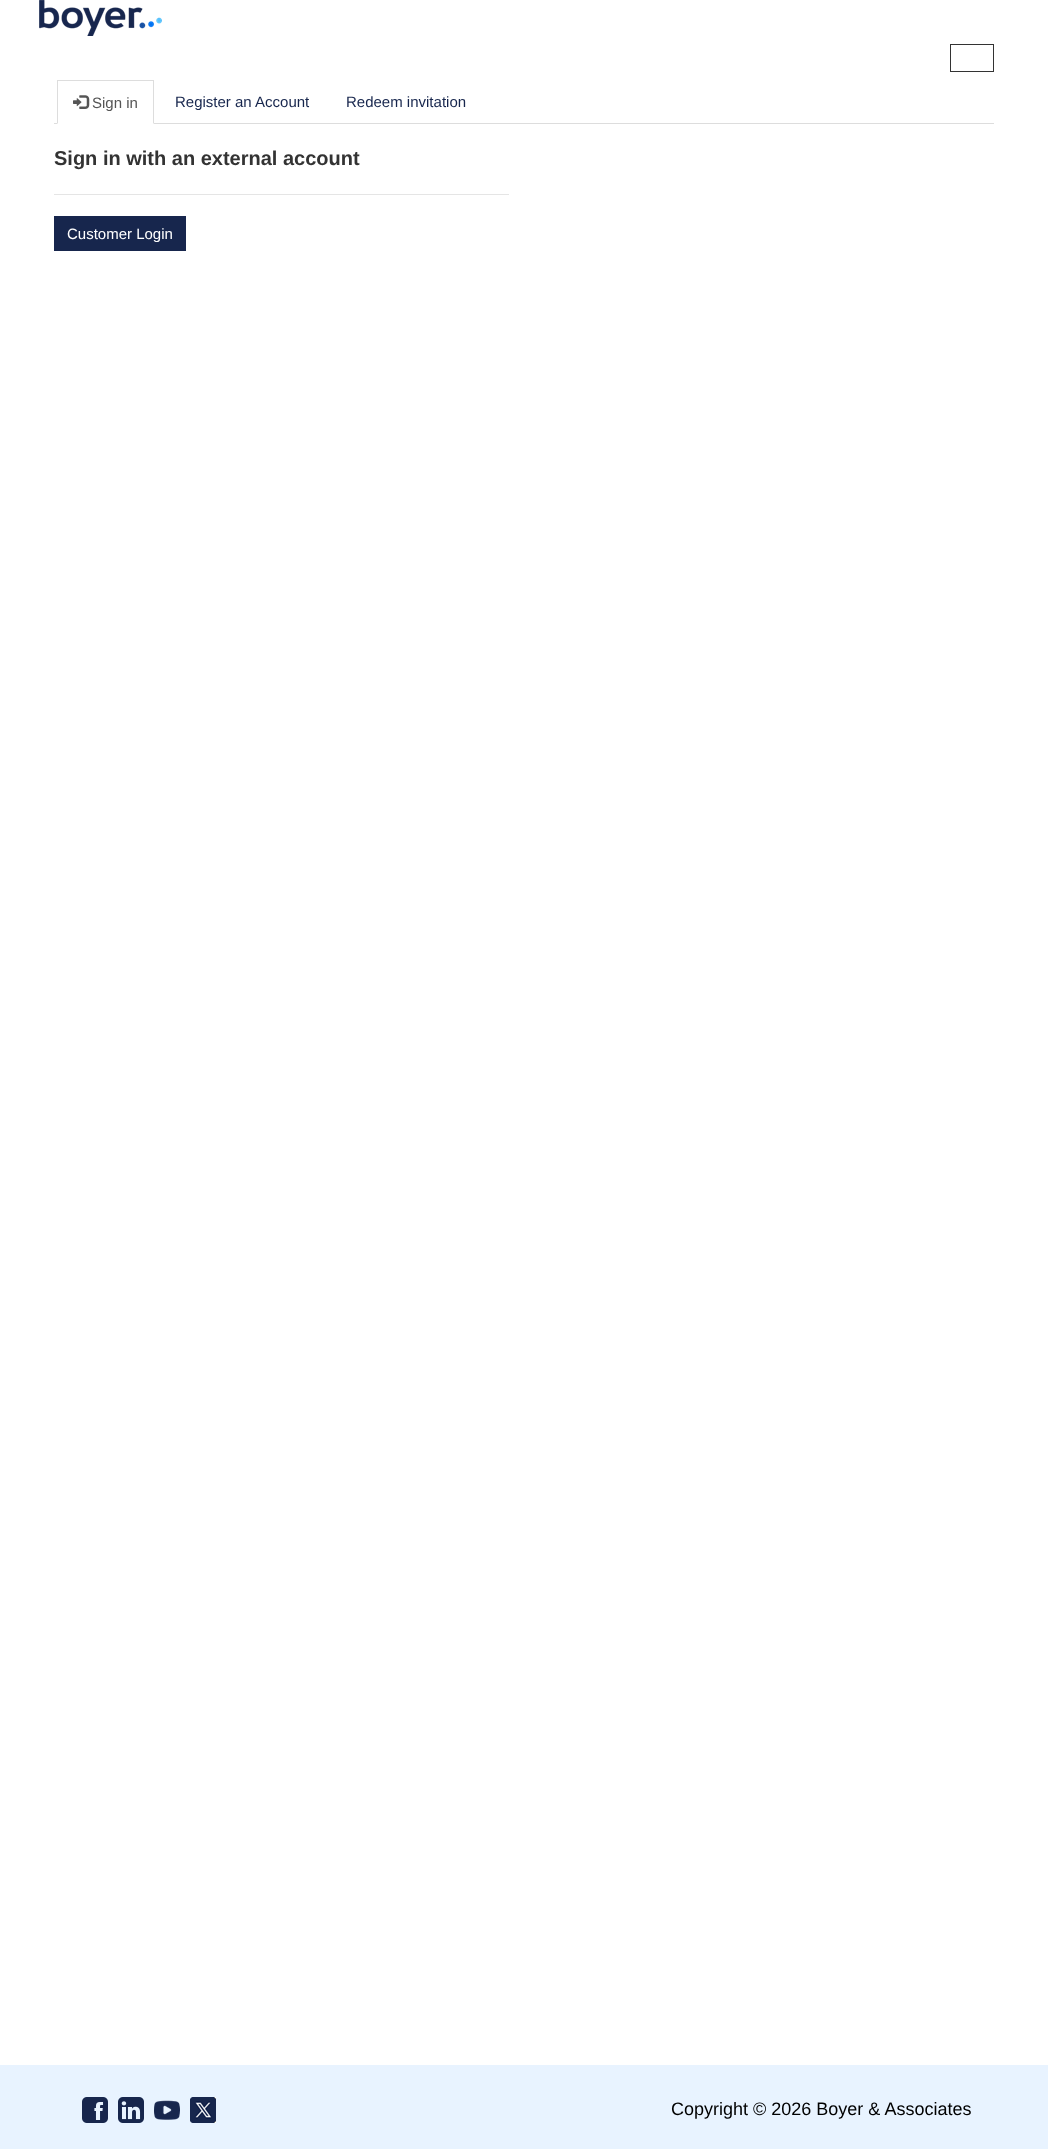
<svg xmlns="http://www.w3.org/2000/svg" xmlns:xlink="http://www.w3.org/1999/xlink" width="1048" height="2149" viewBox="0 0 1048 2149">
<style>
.cls-1{font:15px Liberation Sans;fill:#555555}
.cls-2{font:15px Liberation Sans;fill:#17264d}
.cls-3{font:bold 20px Liberation Sans;fill:#333333}
.cls-4{font:15px Liberation Sans;fill:#ffffff}
.cls-5{font:18px Liberation Sans;fill:#000000}
</style>
<rect width="100%" height="100%" fill="#ffffff"/>
<image xlink:href="image0.png" x="39" y="0" width="123" height="36"/>
<rect fill="none" stroke="#333333" x="950.5" y="44.5" width="43" height="27"/>
<rect fill="#dddddd" x="54" y="123" width="940" height="1"/>
<rect fill="#ffffff" x="57" y="123" width="97" height="1"/>
<rect fill="#dddddd" x="57" y="80" width="97" height="1"/>
<path fill="#dddddd" d="M154 80V124L153 123V81Z"/>
<path fill="#dddddd" d="M57 124V80L58 81V123Z"/>
<image xlink:href="image1.png" x="73" y="95" width="17" height="14"/>
<rect fill="#e5e5e5" x="54" y="194" width="455" height="1"/>
<rect fill="#17264d" x="54" y="216" width="132" height="35"/>
<rect fill="#e8f3ff" x="0" y="2065" width="1048" height="84"/>
<image xlink:href="image2.png" x="82" y="2097" width="26" height="26"/>
<image xlink:href="image3.png" x="118" y="2097" width="26" height="26"/>
<image xlink:href="image4.png" x="154" y="2100" width="26" height="20"/>
<image xlink:href="image5.png" x="190" y="2097" width="26" height="26"/>
<text class="cls-1" x="92" y="108">Sign in</text>
<text class="cls-2" x="175" y="107">Register an Account</text>
<text class="cls-2" x="346" y="107">Redeem invitation</text>
<text class="cls-3" x="54" y="165">Sign in with an external account</text>
<text class="cls-4" x="67" y="239">Customer Login</text>
<text class="cls-5" x="671" y="2115">Copyright © 2026 Boyer &amp; Associates</text>
</svg>
